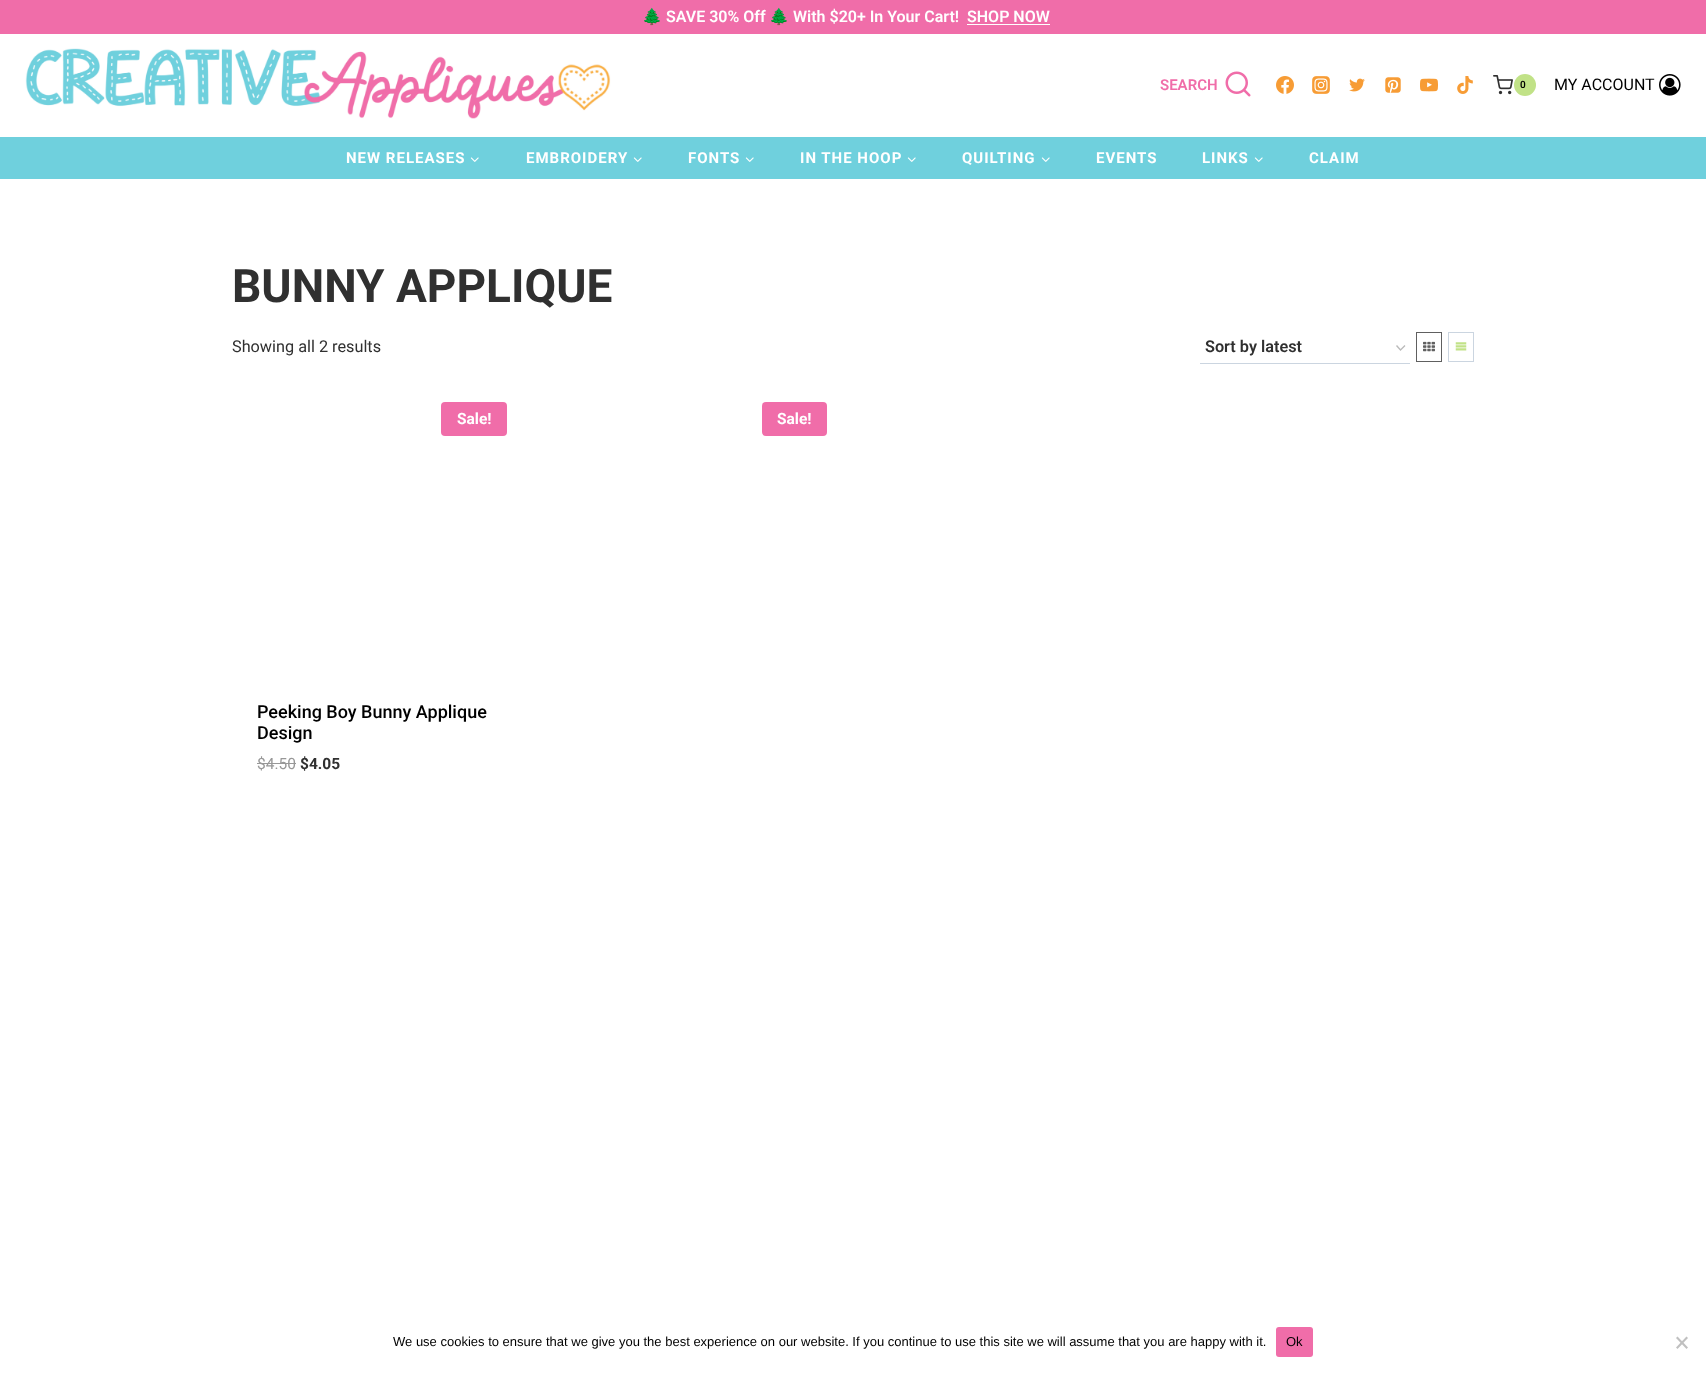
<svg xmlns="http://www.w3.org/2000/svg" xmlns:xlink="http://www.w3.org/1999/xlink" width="1706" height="1373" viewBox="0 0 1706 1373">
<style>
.cls-1{font:bold 16px Noto Color Emoji;fill:#ffffff}
.cls-2{font:600 16px Roboto;fill:#ffffff}
.cls-3{font:600 15px Roboto;fill:#f06da9}
.cls-4{font:600 10px Roboto;letter-spacing:3px;fill:#000000}
.cls-5{font:16px Roboto;fill:#000000}
.cls-6{font:bold 15px Roboto;letter-spacing:1px;fill:#ffffff}
.cls-7{font:bold 46px Roboto;fill:#303030}
.cls-8{font:16.25px Roboto;fill:#303030}
.cls-9{font:600 16.25px Roboto;fill:#303030}
.cls-10{font:bold 15.5px Roboto;fill:#ffffff}
.cls-11{font:500 18px Roboto;fill:#000000}
.cls-12{font:15.5px Roboto;fill:#989898}
.cls-13{font:bold 15.5px Roboto;fill:#303030}
.cls-14{font:13px Liberation Sans;fill:#000000}
</style>
<rect width="100%" height="100%" fill="#ffffff"/>
<rect fill="#f06da9" x="0" y="0" width="1706" height="34"/>
<rect fill="#ffffff" x="967" y="24" width="83" height="1"/>
<image xlink:href="image0.png" x="25" y="48" width="586" height="71"/>
<image xlink:href="image1.png" x="1225" y="71" width="26" height="26"/>
<image xlink:href="image2.png" x="1276" y="76" width="18" height="18"/>
<image xlink:href="image3.png" x="1312" y="76" width="18" height="18"/>
<image xlink:href="image4.png" x="1349" y="78" width="16" height="14"/>
<image xlink:href="image5.png" x="1385" y="77" width="16" height="16"/>
<image xlink:href="image6.png" x="1420" y="78" width="18" height="14"/>
<image xlink:href="image7.png" x="1457" y="76" width="16" height="18"/>
<image xlink:href="image8.png" x="1493" y="75" width="20" height="20"/>
<circle fill="#c1e287" cx="1525" cy="85" r="11"/>
<image xlink:href="image9.png" x="1659" y="74" width="22" height="22"/>
<rect fill="#6fd0dd" x="0" y="137" width="1706" height="42"/>
<image xlink:href="image10.png" x="470" y="157" width="9" height="5"/>
<image xlink:href="image10.png" x="633" y="157" width="9" height="5"/>
<image xlink:href="image10.png" x="745" y="157" width="9" height="5"/>
<image xlink:href="image10.png" x="907" y="157" width="9" height="5"/>
<image xlink:href="image10.png" x="1041" y="157" width="9" height="5"/>
<image xlink:href="image10.png" x="1254" y="157" width="9" height="5"/>
<path fill="none" stroke="#bbbbbb" stroke-width="1.4" d="M1396.5 345.5L1400.5 350L1405 345.5"/>
<rect fill="#cbd5e0" x="1200" y="363" width="210" height="1"/>
<rect fill="none" stroke="#606060" x="1416.5" y="332.5" width="25" height="29"/>
<image xlink:href="image11.png" x="1423" y="341" width="12" height="11"/>
<rect fill="none" stroke="#cbd5e0" x="1448.5" y="332.5" width="25" height="29"/>
<image xlink:href="image12.png" x="1455" y="342" width="12" height="9"/>
<rect fill="#f06da9" x="441" y="402" width="66" height="34" rx="4"/>
<rect fill="#989898" x="257" y="763" width="39" height="1"/>
<rect fill="#f06da9" x="762" y="402" width="65" height="34" rx="4"/>
<rect fill="#f06da9" x="1276" y="1327" width="37" height="30" rx="3"/>
<path fill="#c0c0c0" d="M1686.5 1336.5L1688 1338L1677.5 1349L1676 1347.5Z"/>
<path fill="#c0c0c0" d="M1676 1338L1677.5 1336.5L1688 1347.5L1686.5 1349Z"/>
<text class="cls-1" x="642" y="22">🌲</text>
<text class="cls-2" x="666" y="22">SAVE 30% Off</text>
<text class="cls-1" x="769" y="22">🌲</text>
<text class="cls-2" x="793" y="22">With $20+ In Your Cart!</text>
<text class="cls-2" x="967" y="22">SHOP NOW</text>
<text class="cls-3" x="1160" y="90">SEARCH</text>
<text class="cls-4" x="1520" y="88">0</text>
<text class="cls-5" x="1554" y="90">MY ACCOUNT</text>
<text class="cls-6" x="346" y="163">NEW RELEASES</text>
<text class="cls-6" x="526" y="163">EMBROIDERY</text>
<text class="cls-6" x="688" y="163">FONTS</text>
<text class="cls-6" x="800" y="163">IN THE HOOP</text>
<text class="cls-6" x="962" y="163">QUILTING</text>
<text class="cls-6" x="1096" y="163">EVENTS</text>
<text class="cls-6" x="1202" y="163">LINKS</text>
<text class="cls-6" x="1309" y="163">CLAIM</text>
<text class="cls-7" x="232" y="302">BUNNY APPLIQUE</text>
<text class="cls-8" x="232" y="352">Showing all 2 results</text>
<text class="cls-9" x="1205" y="352">Sort by latest</text>
<text class="cls-10" x="457" y="424">Sale!</text>
<text class="cls-11"><tspan x="257" y="718">Peeking Boy Bunny Applique</tspan><tspan x="257" y="739">Design</tspan></text>
<text class="cls-12" x="257" y="769">$4.50</text>
<text class="cls-13" x="300" y="769">$4.05</text>
<text class="cls-10" x="777" y="424">Sale!</text>
<text class="cls-14" x="393" y="1346">We use cookies to ensure that we give you the best experience on our website. If you continue to use this site we will assume that you are happy with it.</text>
<text class="cls-14" x="1286" y="1346">Ok</text>
</svg>
